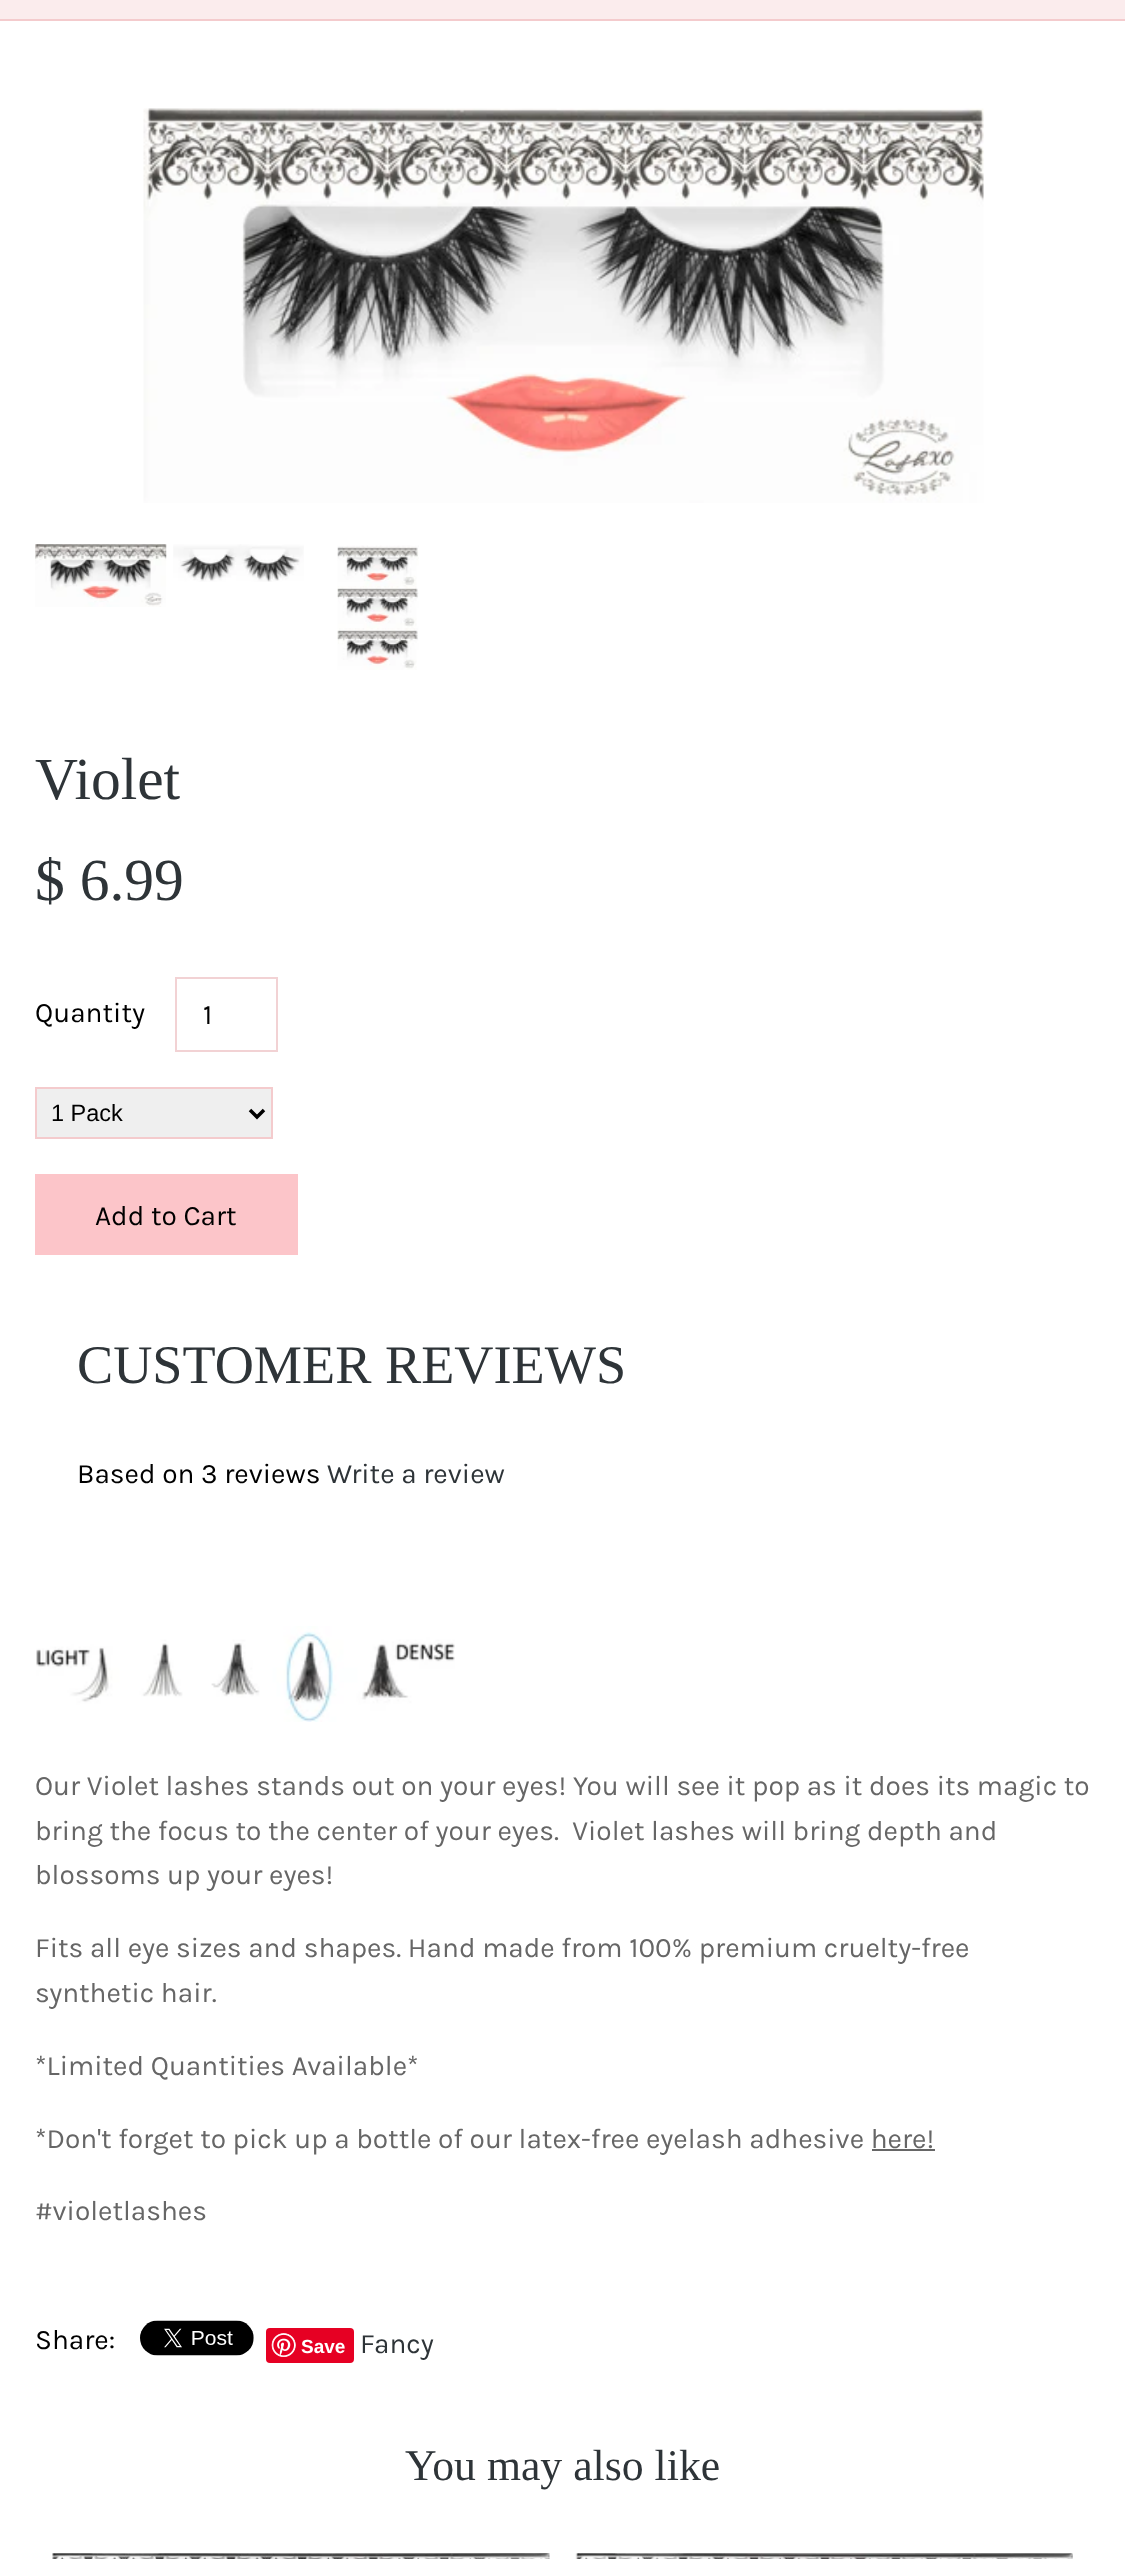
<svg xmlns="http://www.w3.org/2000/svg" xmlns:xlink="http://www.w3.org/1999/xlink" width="1125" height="2559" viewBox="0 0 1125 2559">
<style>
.cls-1{font:59.5px Liberation Serif;fill:#2e3438}
.cls-2{font:28px Karla;fill:#000000}
.cls-3{font:23.5px Liberation Sans;fill:#000000}
.cls-4{font:54.25px Liberation Serif;fill:#2e3438}
.cls-5{font:28px Karla;fill:#2e3438}
.cls-6{font:28px Karla;fill:#666666}
.cls-7{font:bold 19px Liberation Sans;fill:#ffffff}
.cls-8{font:43.75px Liberation Serif;fill:#2e3438}
</style>
<rect width="100%" height="100%" fill="#fbeced"/>
<rect fill="#f4cbcd" x="0" y="19" width="1125" height="2"/>
<rect fill="#ffffff" x="0" y="21" width="1125" height="2538"/>
<image xlink:href="image0.png" x="143" y="108" width="841" height="395"/>
<image xlink:href="image1.png" x="35" y="544" width="132" height="63"/>
<image xlink:href="image2.png" x="173" y="544" width="131" height="38"/>
<image xlink:href="image3.png" x="337" y="545" width="82" height="125"/>
<rect fill="none" stroke="#f2d2d4" stroke-width="2" x="176" y="978" width="101" height="73"/>
<rect fill="#efefef" stroke="#f4cbcd" stroke-width="2" x="36" y="1088" width="236" height="50"/>
<path fill="none" stroke="#000000" stroke-width="3.5" d="M250 1110L257 1117L264 1110"/>
<rect fill="#fcc5c9" x="35" y="1174" width="263" height="81"/>
<image xlink:href="image4.png" x="36" y="1626" width="419" height="96"/>
<rect fill="#666666" x="872" y="2149" width="63" height="2"/>
<image xlink:href="image5.png" x="140" y="2320" width="114" height="36"/>
<rect fill="#e60023" x="266" y="2328" width="88" height="35" rx="4"/>
<image xlink:href="image6.png" x="271" y="2333" width="25" height="24"/>
<image xlink:href="image7.png" x="52" y="2553" width="498" height="6"/>
<image xlink:href="image8.png" x="575" y="2553" width="498" height="6"/>
<text class="cls-1"><tspan x="35" y="799">Violet</tspan><tspan x="35" y="900">$ 6.99</tspan></text>
<text class="cls-2" x="35" y="1022">Quantity</text>
<text class="cls-2" x="203" y="1024">1</text>
<text class="cls-3" x="51" y="1121">1 Pack</text>
<text class="cls-2" x="95" y="1225">Add to Cart</text>
<text class="cls-4" x="77" y="1383">CUSTOMER REVIEWS</text>
<text class="cls-2" x="77" y="1483">Based on 3 reviews</text>
<text class="cls-5" x="327" y="1483">Write a review</text>
<text class="cls-6" xml:space="preserve"><tspan x="35" y="1795">Our Violet lashes stands out on your eyes! You will see it pop as it does its magic to</tspan><tspan x="35" y="1840">bring the focus to the center of your eyes.  Violet lashes will bring depth and</tspan><tspan x="35" y="1884">blossoms up your eyes!</tspan></text>
<text class="cls-6"><tspan x="35" y="1957">Fits all eye sizes and shapes. Hand made from 100% premium cruelty-free</tspan><tspan x="35" y="2002">synthetic hair.</tspan></text>
<text class="cls-6" x="35" y="2075">*Limited Quantities Available*</text>
<text class="cls-6" x="35" y="2148">*Don't forget to pick up a bottle of our latex-free eyelash adhesive here!</text>
<text class="cls-6" x="35" y="2220">#violetlashes</text>
<text class="cls-2" x="35" y="2349">Share:</text>
<text class="cls-7" x="301" y="2353">Save</text>
<text class="cls-5" x="360" y="2353">Fancy</text>
<text class="cls-8" x="405" y="2480">You may also like</text>
</svg>
